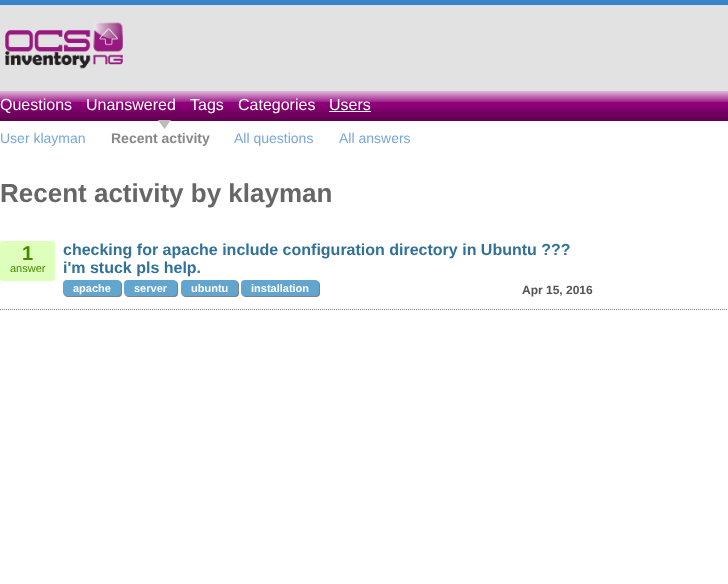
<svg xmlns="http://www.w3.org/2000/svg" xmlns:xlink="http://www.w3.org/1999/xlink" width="728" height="584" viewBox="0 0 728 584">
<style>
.cls-1{font:16px Liberation Sans;fill:#ffffff}
.cls-2{font:14px Liberation Sans;fill:#79a8d4}
.cls-3{font:bold 14px Liberation Sans;fill:#888888}
.cls-4{font:bold 26px Liberation Sans;fill:#666666}
.cls-5{font:bold 20px Liberation Sans;fill:#488700}
.cls-6{font:11px Liberation Sans;fill:#488700}
.cls-7{font:bold 16px Liberation Sans;fill:#307198}
.cls-8{font:bold 11px Liberation Sans;fill:#ffffff}
.cls-9{font:bold 12px Liberation Sans;fill:#555555}
</style>
<rect width="100%" height="100%" fill="#ffffff"/>
<image xlink:href="image0.png" x="0" y="5" width="728" height="116"/>
<rect fill="#3783c9" x="0" y="0" width="728" height="5"/>
<image xlink:href="image1.png" x="5" y="22" width="118" height="47"/>
<rect fill="#ffffff" x="329" y="111" width="42" height="1"/>
<image xlink:href="image2.png" x="158" y="120" width="13" height="9"/>
<path fill="none" stroke="#888888" stroke-dasharray="1 1" d="M0 309.5H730"/>
<rect fill="#ddffbb" x="0" y="241" width="55" height="40" rx="3"/>
<rect fill="#818181" filter="blur(0.5px)" x="64" y="281" width="58" height="16" rx="4"/>
<rect fill="#62a5ce" x="63" y="280" width="58" height="16" rx="4"/>
<rect fill="#818181" filter="blur(0.5px)" x="125" y="281" width="53" height="16" rx="4"/>
<rect fill="#62a5ce" x="124" y="280" width="53" height="16" rx="4"/>
<rect fill="#818181" filter="blur(0.5px)" x="182" y="281" width="57" height="16" rx="4"/>
<rect fill="#62a5ce" x="181" y="280" width="57" height="16" rx="4"/>
<rect fill="#818181" filter="blur(0.5px)" x="242" y="281" width="78" height="16" rx="4"/>
<rect fill="#62a5ce" x="241" y="280" width="78" height="16" rx="4"/>
<text class="cls-1" x="0" y="110">Questions</text>
<text class="cls-1" x="86" y="110">Unanswered</text>
<text class="cls-1" x="190" y="110">Tags</text>
<text class="cls-1" x="238" y="110">Categories</text>
<text class="cls-1" x="329" y="110">Users</text>
<text class="cls-2" x="0" y="143">User klayman</text>
<text class="cls-3" x="111" y="143">Recent activity</text>
<text class="cls-2" x="234" y="143">All questions</text>
<text class="cls-2" x="339" y="143">All answers</text>
<text class="cls-4" x="0" y="202">Recent activity by klayman</text>
<text class="cls-5" x="22" y="260">1</text>
<text class="cls-6" x="10" y="272">answer</text>
<text class="cls-7"><tspan x="63" y="255">checking for apache include configuration directory in Ubuntu ???</tspan><tspan x="63" y="273">i'm stuck pls help.</tspan></text>
<text class="cls-8" x="73" y="292">apache</text>
<text class="cls-8" x="134" y="292">server</text>
<text class="cls-8" x="191" y="292">ubuntu</text>
<text class="cls-8" x="251" y="292">installation</text>
<text class="cls-9" x="522" y="294">Apr 15, 2016</text>
</svg>
